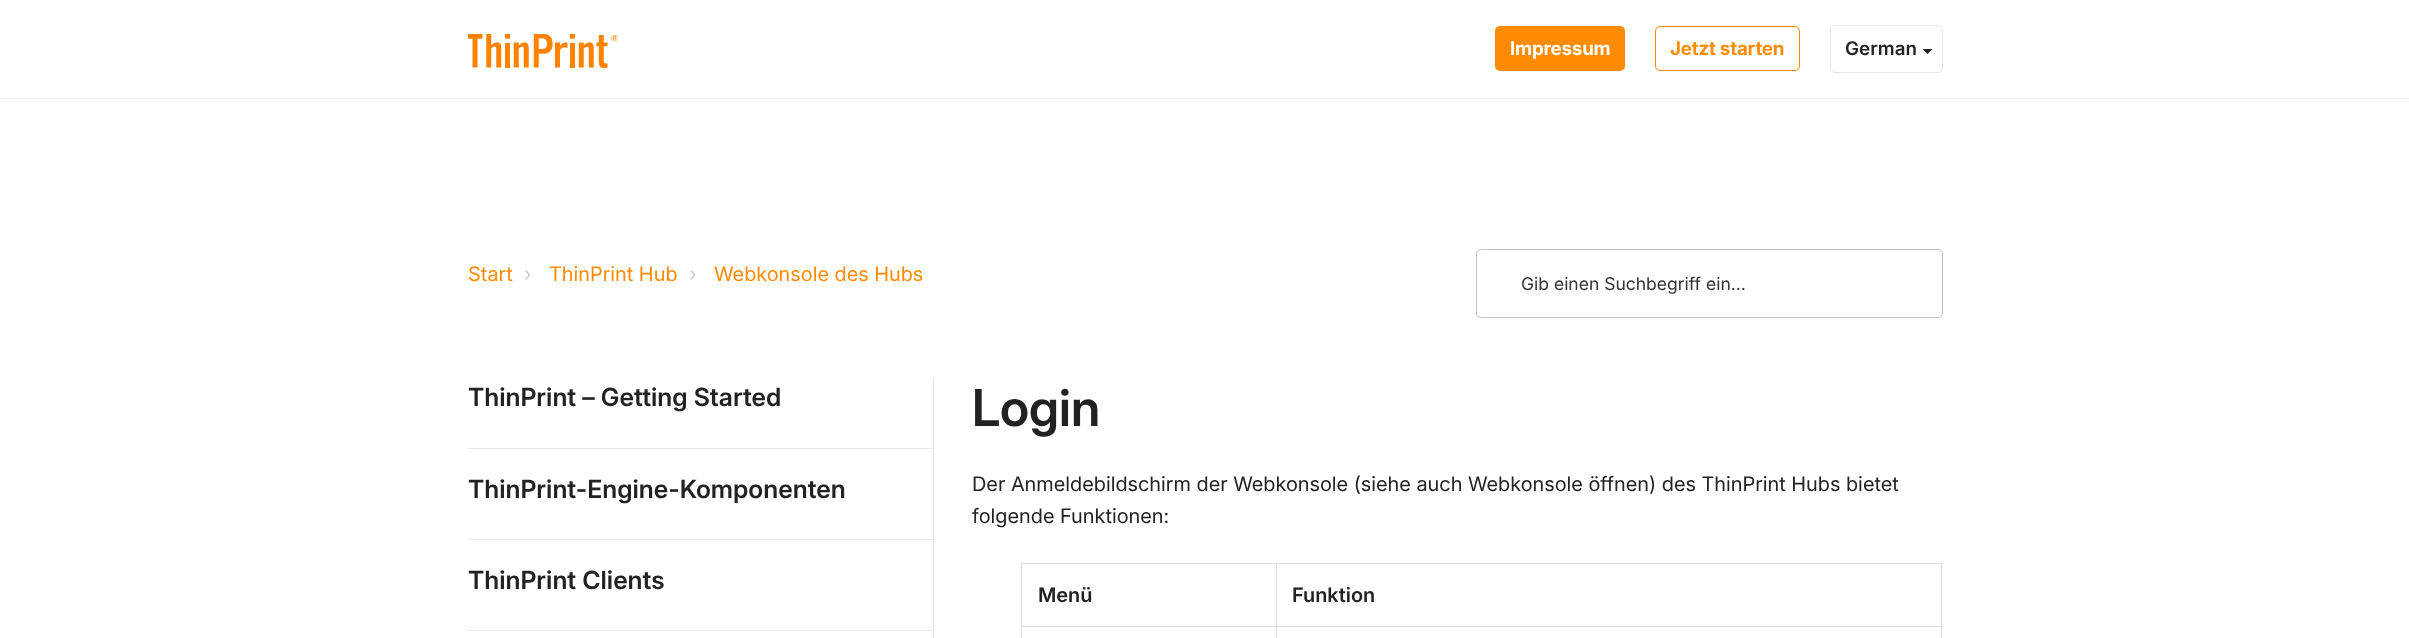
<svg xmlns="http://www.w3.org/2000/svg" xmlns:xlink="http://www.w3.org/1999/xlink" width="2409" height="638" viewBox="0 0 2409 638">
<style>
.cls-1{font:bold 18.75px Inter;letter-spacing:-0.2px;fill:#ffffff}
.cls-2{font:bold 18.75px Inter;letter-spacing:-0.2px;fill:#ff8b02}
.cls-3{font:600 18.75px 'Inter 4';fill:#222222}
.cls-4{font:20px Inter;fill:#ff8b02}
.cls-5{font:20px Inter;fill:#cccccc}
.cls-6{font:17.5px 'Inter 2';fill:#333333}
.cls-7{font:600 25px Inter;fill:#222222}
.cls-8{font:600 51px 'Inter 2';fill:#222222}
.cls-9{font:20px Inter;fill:#222222}
.cls-10{font:600 20px 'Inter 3';fill:#222222}
</style>
<rect width="100%" height="100%" fill="#ffffff"/>
<rect fill="#f1f1f1" x="0" y="98" width="2409" height="1"/>
<image xlink:href="image0.png" x="468" y="34" width="150" height="35"/>
<rect fill="#ff8b02" x="1495" y="26" width="130" height="45" rx="5"/>
<rect fill="none" stroke="#ff8b02" x="1655.5" y="26.5" width="144" height="44" rx="4.5"/>
<rect fill="none" stroke="#e6e6e6" x="1830.5" y="25.5" width="112" height="47" rx="4.5"/>
<path fill="#222222" d="M1922.5 49H1932.5L1927.5 54Z"/>
<rect fill="none" stroke="#bdc2c5" x="1476.5" y="249.5" width="466" height="68" rx="4.5"/>
<rect fill="#dee2e6" x="933" y="378" width="1" height="260"/>
<rect fill="#eaeaea" x="468" y="448" width="465" height="1"/>
<rect fill="#eaeaea" x="468" y="539" width="465" height="1"/>
<rect fill="#eaeaea" x="468" y="630" width="465" height="1"/>
<rect fill="#dddddd" x="1021" y="563" width="922" height="1"/>
<rect fill="#dddddd" x="1276" y="626" width="667" height="1"/>
<rect fill="#dddddd" x="1276" y="626" width="1" height="12"/>
<rect fill="#dddddd" x="1021" y="626" width="257" height="1"/>
<rect fill="#dddddd" x="1021" y="563" width="1" height="75"/>
<rect fill="#dddddd" x="1941" y="563" width="1" height="75"/>
<rect fill="#dddddd" x="1276" y="563" width="1" height="65"/>
<text class="cls-1" x="1510" y="55">Impressum</text>
<text class="cls-2" x="1670" y="55">Jetzt starten</text>
<text class="cls-3" x="1845" y="55">German</text>
<text class="cls-4" x="468" y="281">Start</text>
<text class="cls-5" x="524" y="281">›</text>
<text class="cls-4" x="549" y="281">ThinPrint Hub</text>
<text class="cls-5" x="689" y="281">›</text>
<text class="cls-4" x="714" y="281">Webkonsole des Hubs</text>
<text class="cls-6" x="1521" y="290">Gib einen Suchbegriff ein…</text>
<text class="cls-7" x="468" y="406">ThinPrint – Getting Started</text>
<text class="cls-7" x="468" y="498">ThinPrint-Engine-Komponenten</text>
<text class="cls-7" x="468" y="589">ThinPrint Clients</text>
<text class="cls-8" x="972" y="426">Login</text>
<text class="cls-9"><tspan x="972" y="491">Der Anmeldebildschirm der Webkonsole (siehe auch Webkonsole öffnen) des ThinPrint Hubs bietet</tspan><tspan x="972" y="523">folgende Funktionen:</tspan></text>
<text class="cls-10" x="1038" y="602">Menü</text>
<text class="cls-10" x="1292" y="602">Funktion</text>
</svg>
